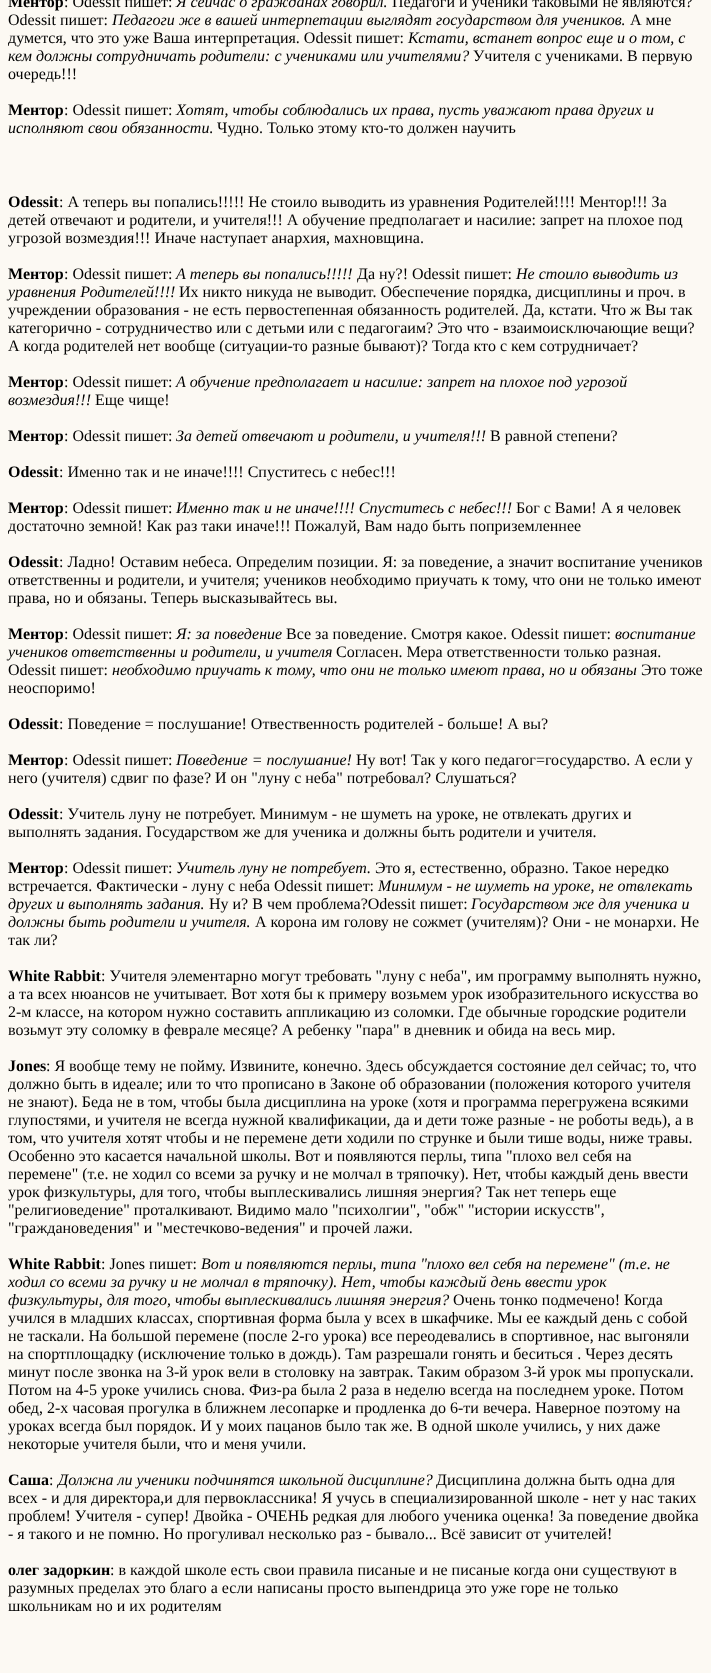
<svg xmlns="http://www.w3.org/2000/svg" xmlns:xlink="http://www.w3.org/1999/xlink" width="711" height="1673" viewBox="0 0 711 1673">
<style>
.cls-1{font:bold 16px Liberation Serif;fill:#000000}
.cls-2{font:16px Liberation Serif;fill:#000000}
.cls-3{font:italic 16px Liberation Serif;fill:#000000}
</style>
<rect width="100%" height="100%" fill="#fcf9f3"/>
<text class="cls-1" x="8" y="7">Ментор</text>
<text class="cls-2" x="64" y="7">: Odessit пишет:</text>
<text class="cls-3" x="176" y="7">Я сейчас о гражданах говорил.</text>
<text class="cls-2" x="392" y="7">Педагоги и ученики таковыми не являются?</text>
<text class="cls-2" x="8" y="25">Odessit пишет:</text>
<text class="cls-3" x="112" y="25">Педагоги же в вашей интерпетации выглядят государством для учеников.</text>
<text class="cls-2" x="630" y="25">А мне</text>
<text class="cls-2" x="8" y="43">думется, что это уже Ваша интерпретация. Odessit пишет:</text>
<text class="cls-3" x="408" y="43">Кстати, встанет вопрос еще и о том, с</text>
<text class="cls-3" x="8" y="61">кем должны сотрудничать родители: с учениками или учителями?</text>
<text class="cls-2" x="473" y="61">Учителя с учениками. В первую</text>
<text class="cls-2" x="8" y="79">очередь!!!</text>
<text class="cls-1" x="8" y="115">Ментор</text>
<text class="cls-2" x="64" y="115">: Odessit пишет:</text>
<text class="cls-3" x="176" y="115">Хотят, чтобы соблюдались их права, пусть уважают права других и</text>
<text class="cls-3" x="8" y="133">исполняют свои обязанности.</text>
<text class="cls-2" x="217" y="133">Чудно. Только этому кто-то должен научить</text>
<text class="cls-1" x="8" y="207">Odessit</text>
<text class="cls-2" x="59" y="207">: А теперь вы попались!!!!! Не стоило выводить из уравнения Родителей!!!! Ментор!!! За</text>
<text class="cls-2"><tspan x="8" y="225">детей отвечают и родители, и учителя!!! А обучение предполагает и насилие: запрет на плохое под</tspan><tspan x="8" y="243">угрозой возмездия!!! Иначе наступает анархия, махновщина.</tspan></text>
<text class="cls-1" x="8" y="279">Ментор</text>
<text class="cls-2" x="64" y="279">: Odessit пишет:</text>
<text class="cls-3" x="176" y="279">А теперь вы попались!!!!!</text>
<text class="cls-2" x="357" y="279">Да ну?! Odessit пишет:</text>
<text class="cls-3" x="516" y="279">Не стоило выводить из</text>
<text class="cls-3" x="8" y="297">уравнения Родителей!!!!</text>
<text class="cls-2" x="179" y="297">Их никто никуда не выводит. Обеспечение порядка, дисциплины и проч. в</text>
<text class="cls-2"><tspan x="8" y="315">учреждении образования - не есть первостепенная обязанность родителей. Да, кстати. Что ж Вы так</tspan><tspan x="8" y="333">категорично - сотрудничество или с детьми или с педагогаим? Это что - взаимоисключающие вещи?</tspan><tspan x="8" y="351">А когда родителей нет вообще (ситуации-то разные бывают)? Тогда кто с кем сотрудничает?</tspan></text>
<text class="cls-1" x="8" y="387">Ментор</text>
<text class="cls-2" x="64" y="387">: Odessit пишет:</text>
<text class="cls-3" x="176" y="387">А обучение предполагает и насилие: запрет на плохое под угрозой</text>
<text class="cls-3" x="8" y="405">возмездия!!!</text>
<text class="cls-2" x="95" y="405">Еще чище!</text>
<text class="cls-1" x="8" y="441">Ментор</text>
<text class="cls-2" x="64" y="441">: Odessit пишет:</text>
<text class="cls-3" x="176" y="441">За детей отвечают и родители, и учителя!!!</text>
<text class="cls-2" x="490" y="441">В равной степени?</text>
<text class="cls-1" x="8" y="477">Odessit</text>
<text class="cls-2" x="59" y="477">: Именно так и не иначе!!!! Спуститесь с небес!!!</text>
<text class="cls-1" x="8" y="513">Ментор</text>
<text class="cls-2" x="64" y="513">: Odessit пишет:</text>
<text class="cls-3" x="176" y="513">Именно так и не иначе!!!! Спуститесь с небес!!!</text>
<text class="cls-2" x="516" y="513">Бог с Вами! А я человек</text>
<text class="cls-2" x="8" y="531">достаточно земной! Как раз таки иначе!!! Пожалуй, Вам надо быть поприземленнее</text>
<text class="cls-1" x="8" y="567">Odessit</text>
<text class="cls-2" x="59" y="567">: Ладно! Оставим небеса. Определим позиции. Я: за поведение, а значит воспитание учеников</text>
<text class="cls-2"><tspan x="8" y="585">ответственны и родители, и учителя; учеников необходимо приучать к тому, что они не только имеют</tspan><tspan x="8" y="603">права, но и обязаны. Теперь высказывайтесь вы.</tspan></text>
<text class="cls-1" x="8" y="639">Ментор</text>
<text class="cls-2" x="64" y="639">: Odessit пишет:</text>
<text class="cls-3" x="176" y="639">Я: за поведение</text>
<text class="cls-2" x="286" y="639">Все за поведение. Смотря какое. Odessit пишет:</text>
<text class="cls-3" x="615" y="639">воспитание</text>
<text class="cls-3" x="8" y="657">учеников ответственны и родители, и учителя</text>
<text class="cls-2" x="336" y="657">Согласен. Мера ответственности только разная.</text>
<text class="cls-2" x="8" y="675">Odessit пишет:</text>
<text class="cls-3" x="112" y="675">необходимо приучать к тому, что они не только имеют права, но и обязаны</text>
<text class="cls-2" x="641" y="675">Это тоже</text>
<text class="cls-2" x="8" y="693">неоспоримо!</text>
<text class="cls-1" x="8" y="729">Odessit</text>
<text class="cls-2" x="59" y="729">: Поведение = послушание! Отвественность родителей - больше! А вы?</text>
<text class="cls-1" x="8" y="765">Ментор</text>
<text class="cls-2" x="64" y="765">: Odessit пишет:</text>
<text class="cls-3" x="176" y="765">Поведение = послушание!</text>
<text class="cls-2" x="356" y="765">Ну вот! Так у кого педагог=государство. А если у</text>
<text class="cls-2" x="8" y="783">него (учителя) сдвиг по фазе? И он "луну с неба" потребовал? Слушаться?</text>
<text class="cls-1" x="8" y="819">Odessit</text>
<text class="cls-2" x="59" y="819">: Учитель луну не потребует. Минимум - не шуметь на уроке, не отвлекать других и</text>
<text class="cls-2" x="8" y="837">выполнять задания. Государством же для ученика и должны быть родители и учителя.</text>
<text class="cls-1" x="8" y="873">Ментор</text>
<text class="cls-2" x="64" y="873">: Odessit пишет:</text>
<text class="cls-3" x="176" y="873">Учитель луну не потребует.</text>
<text class="cls-2" x="375" y="873">Это я, естественно, образно. Такое нередко</text>
<text class="cls-2" x="8" y="891">встречается. Фактически - луну с неба Odessit пишет:</text>
<text class="cls-3" x="378" y="891">Минимум - не шуметь на уроке, не отвлекать</text>
<text class="cls-3" x="8" y="909">других и выполнять задания.</text>
<text class="cls-2" x="209" y="909">Ну и? В чем проблема?Odessit пишет:</text>
<text class="cls-3" x="471" y="909">Государством же для ученика и</text>
<text class="cls-3" x="8" y="927">должны быть родители и учителя.</text>
<text class="cls-2" x="255" y="927">А корона им голову не сожмет (учителям)? Они - не монархи. Не</text>
<text class="cls-2" x="8" y="945">так ли?</text>
<text class="cls-1" x="8" y="981">White Rabbit</text>
<text class="cls-2" x="101" y="981">: Учителя элементарно могут требовать "луну с неба", им программу выполнять нужно,</text>
<text class="cls-2"><tspan x="8" y="999">а та всех нюансов не учитывает. Вот хотя бы к примеру возьмем урок изобразительного искусства во</tspan><tspan x="8" y="1017">2-м классе, на котором нужно составить аппликацию из соломки. Где обычные городские родители</tspan><tspan x="8" y="1035">возьмут эту соломку в феврале месяце? А ребенку "пара" в дневник и обида на весь мир.</tspan></text>
<text class="cls-1" x="8" y="1071">Jones</text>
<text class="cls-2" x="46" y="1071">: Я вообще тему не пойму. Извините, конечно. Здесь обсуждается состояние дел сейчас; то, что</text>
<text class="cls-2"><tspan x="8" y="1089">должно быть в идеале; или то что прописано в Законе об образовании (положения которого учителя</tspan><tspan x="8" y="1107">не знают). Беда не в том, чтобы была дисциплина на уроке (хотя и программа перегружена всякими</tspan><tspan x="8" y="1125">глупостями, и учителя не всегда нужной квалификации, да и дети тоже разные - не роботы ведь), а в</tspan><tspan x="8" y="1143">том, что учителя хотят чтобы и не перемене дети ходили по струнке и были тише воды, ниже травы.</tspan><tspan x="8" y="1161">Особенно это касается начальной школы. Вот и появляются перлы, типа "плохо вел себя на</tspan><tspan x="8" y="1179">перемене" (т.е. не ходил со всеми за ручку и не молчал в тряпочку). Нет, чтобы каждый день ввести</tspan><tspan x="8" y="1197">урок физкультуры, для того, чтобы выплескивались лишняя энергия? Так нет теперь еще</tspan><tspan x="8" y="1215">"религиоведение" проталкивают. Видимо мало "психолгии", "обж" "истории искусств",</tspan><tspan x="8" y="1233">"граждановедения" и "местечково-ведения" и прочей лажи.</tspan></text>
<text class="cls-1" x="8" y="1269">White Rabbit</text>
<text class="cls-2" x="101" y="1269">: Jones пишет:</text>
<text class="cls-3" x="201" y="1269">Вот и появляются перлы, типа "плохо вел себя на перемене" (т.е. не</text>
<text class="cls-3"><tspan x="8" y="1287">ходил со всеми за ручку и не молчал в тряпочку). Нет, чтобы каждый день ввести урок</tspan><tspan x="8" y="1305">физкультуры, для того, чтобы выплескивались лишняя энергия?</tspan></text>
<text class="cls-2" x="453" y="1305">Очень тонко подмечено! Когда</text>
<text class="cls-2"><tspan x="8" y="1323">учился в младших классах, спортивная форма была у всех в шкафчике. Мы ее каждый день с собой</tspan><tspan x="8" y="1341">не таскали. На большой перемене (после 2-го урока) все переодевались в спортивное, нас выгоняли</tspan><tspan x="8" y="1359">на спортплощадку (исключение только в дождь). Там разрешали гонять и беситься . Через десять</tspan><tspan x="8" y="1377">минут после звонка на 3-й урок вели в столовку на завтрак. Таким образом 3-й урок мы пропускали.</tspan><tspan x="8" y="1395">Потом на 4-5 уроке учились снова. Физ-ра была 2 раза в неделю всегда на последнем уроке. Потом</tspan><tspan x="8" y="1413">обед, 2-х часовая прогулка в ближнем лесопарке и продленка до 6-ти вечера. Наверное поэтому на</tspan><tspan x="8" y="1431">уроках всегда был порядок. И у моих пацанов было так же. В одной школе учились, у них даже</tspan><tspan x="8" y="1449">некоторые учителя были, что и меня учили.</tspan></text>
<text class="cls-1" x="8" y="1485">Саша</text>
<text class="cls-2" x="49" y="1485">:</text>
<text class="cls-3" x="58" y="1485">Должна ли ученики подчинятся школьной дисциплине?</text>
<text class="cls-2" x="436" y="1485">Дисциплина должна быть одна для</text>
<text class="cls-2"><tspan x="8" y="1503">всех - и для директора,и для первоклассника! Я учусь в специализированной школе - нет у нас таких</tspan><tspan x="8" y="1521">проблем! Учителя - супер! Двойка - ОЧЕНЬ редкая для любого ученика оценка! За поведение двойка</tspan><tspan x="8" y="1539">- я такого и не помню. Но прогуливал несколько раз - бывало... Всё зависит от учителей!</tspan></text>
<text class="cls-1" x="8" y="1575">олег задоркин</text>
<text class="cls-2" x="110" y="1575">: в каждой школе есть свои правила писаные и не писаные когда они существуют в</text>
<text class="cls-2"><tspan x="8" y="1593">разумных пределах это благо а если написаны просто выпендрица это уже горе не только</tspan><tspan x="8" y="1611">школьникам но и их родителям</tspan></text>
</svg>
